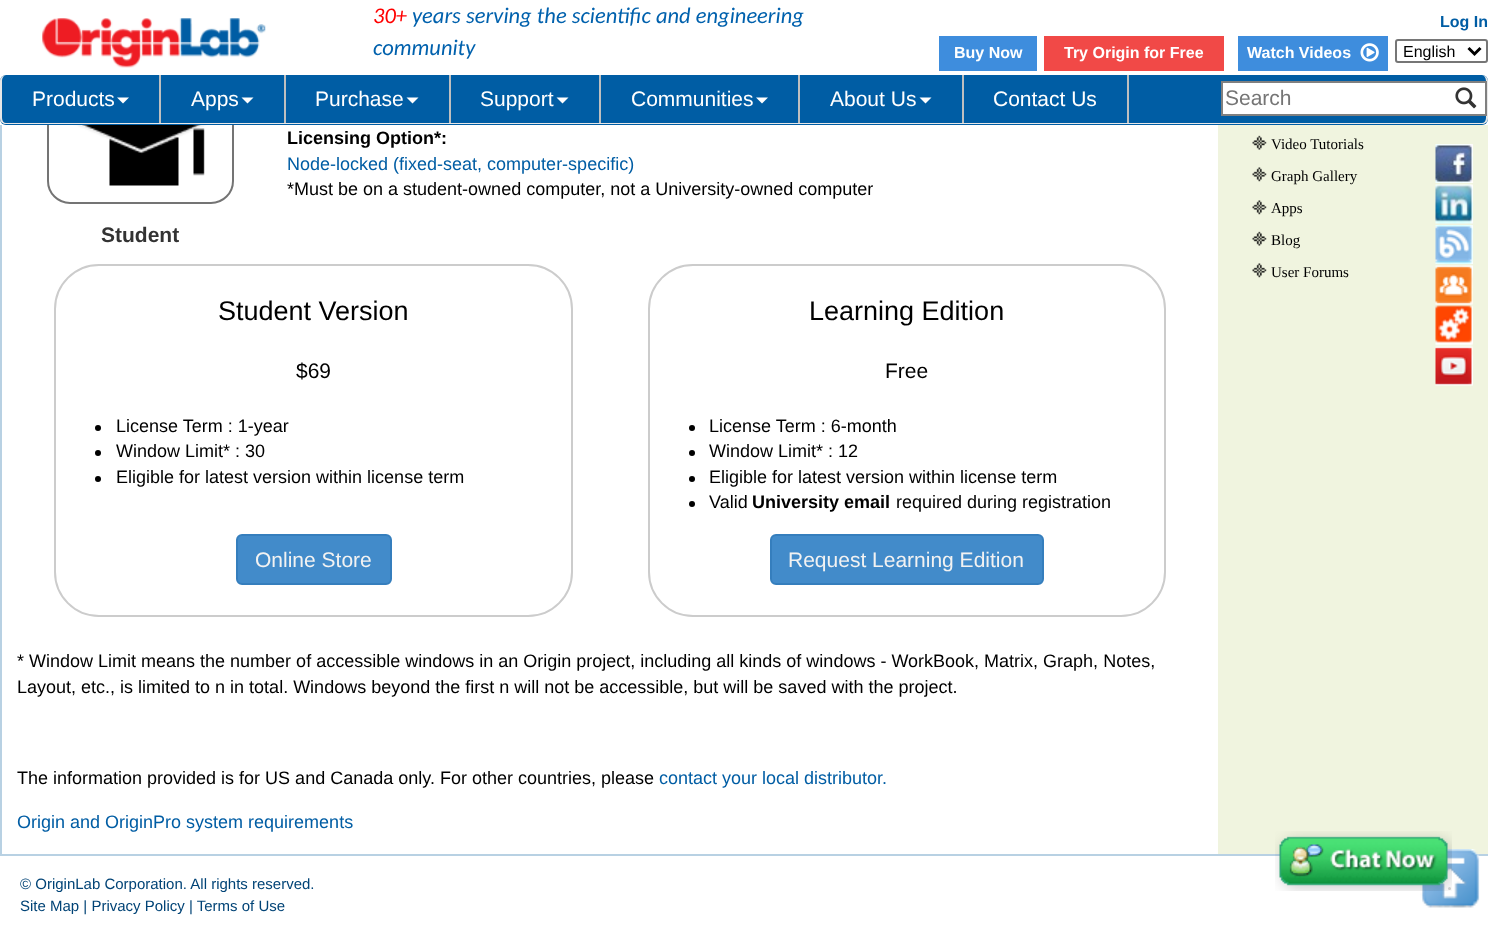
<svg xmlns="http://www.w3.org/2000/svg" xmlns:xlink="http://www.w3.org/1999/xlink" width="1488" height="927" viewBox="0 0 1488 927">
<style>
.cls-1{font:italic 22.5px Carlito;fill:#ff0000}
.cls-2{font:italic 22.5px Carlito;fill:#0061ad}
.cls-3{font:bold 16px Liberation Sans;fill:#005da4}
.cls-4{font:bold 16px Liberation Sans;fill:#ffffff}
.cls-5{font:16px Liberation Sans;fill:#000000}
.cls-6{font:21px Liberation Sans;fill:#ffffff}
.cls-7{font:21px Liberation Sans;fill:#757575}
.cls-8{font:bold 18px Liberation Sans;fill:#000000}
.cls-9{font:18px Liberation Sans;fill:#005da4}
.cls-10{font:18px Liberation Sans;fill:#000000}
.cls-11{font:bold 21px Liberation Sans;fill:#333333}
.cls-12{font:27px Liberation Sans;fill:#000000}
.cls-13{font:21px Liberation Sans;fill:#000000}
.cls-14{font:21px Liberation Sans;fill:#f2f2f2}
.cls-15{font:15px Liberation Serif;fill:#000000}
.cls-16{font:15px Liberation Sans;fill:#004376}
</style>
<rect width="100%" height="100%" fill="#ffffff"/>
<rect fill="none" stroke="#747474" stroke-width="2" x="48" y="55" width="185" height="148" rx="22"/>
<rect fill="#ffffff" x="47" y="54" width="187" height="71"/>
<image xlink:href="image0.png" x="42" y="18" width="224" height="50"/>
<rect fill="#3e8ddd" x="939" y="36" width="98" height="35"/>
<rect fill="#f14947" x="1044" y="36" width="180" height="35"/>
<rect fill="#3e8ddd" x="1238" y="36" width="150" height="35"/>
<image xlink:href="image1.png" x="1360" y="43" width="19" height="19"/>
<rect fill="none" stroke="#767676" stroke-width="2" x="1396" y="40" width="91" height="22" rx="2"/>
<path fill="none" stroke="#000000" stroke-width="3" d="M1468.5 48L1474.5 54L1480.5 48"/>
<rect fill="#005da4" x="0" y="75" width="1488" height="50" rx="6"/>
<path fill="#e7e7e7" fill-rule="evenodd" d="M6 75H1482C1485 75 1488 78 1488 81V118C1488 122 1485 124 1482 124H6C3 124 0 122 0 118V81C0 78 3 75 6 75ZM6 75H1482C1484 75 1486 78 1486 81V118C1486 121 1484 123 1482 123H6C4 123 2 121 2 118V81C2 78 4 75 6 75Z"/>
<rect fill="#bfbfbf" x="159" y="75" width="2" height="48"/>
<path fill="#ffffff" d="M117 97.5H129L123 103.5Z"/>
<rect fill="#bfbfbf" x="284" y="75" width="2" height="48"/>
<path fill="#ffffff" d="M241.5 97.5H253.5L247.5 103.5Z"/>
<rect fill="#bfbfbf" x="449" y="75" width="2" height="48"/>
<path fill="#ffffff" d="M406.5 97.5H418.5L412.5 103.5Z"/>
<rect fill="#bfbfbf" x="599" y="75" width="2" height="48"/>
<path fill="#ffffff" d="M556.5 97.5H568.5L562.5 103.5Z"/>
<rect fill="#bfbfbf" x="798" y="75" width="2" height="48"/>
<path fill="#ffffff" d="M756 97.5H768L762 103.5Z"/>
<rect fill="#bfbfbf" x="962" y="75" width="2" height="48"/>
<path fill="#ffffff" d="M919.5 97.5H931.5L925.5 103.5Z"/>
<rect fill="#bfbfbf" x="1127" y="75" width="2" height="48"/>
<rect fill="#ffffff" x="1223" y="83" width="262" height="31"/>
<rect fill="#808080" x="1221" y="81" width="266" height="2"/>
<rect fill="#808080" x="1221" y="114" width="225" height="2"/>
<rect fill="#808080" x="1221" y="81" width="2" height="35"/>
<rect fill="#808080" x="1485" y="81" width="2" height="35"/>
<rect fill="#808080" x="1446" y="114" width="41" height="2"/>
<image xlink:href="image2.png" x="1455" y="87" width="22" height="22"/>
<rect fill="#b8d1e3" x="0" y="125" width="2" height="729"/>
<image xlink:href="image3.png" x="73" y="125" width="136" height="61"/>
<rect fill="none" stroke="#cccccc" stroke-width="2" x="55" y="265" width="517" height="351" rx="44"/>
<circle fill="#000000" cx="98" cy="428" r="3"/>
<circle fill="#000000" cx="98" cy="453" r="3"/>
<circle fill="#000000" cx="98" cy="479" r="3"/>
<rect fill="#428bca" stroke="#357ebd" stroke-width="2" x="237" y="535" width="154" height="49" rx="5"/>
<rect fill="none" stroke="#cccccc" stroke-width="2" x="649" y="265" width="516" height="351" rx="44"/>
<circle fill="#000000" cx="692" cy="428" r="3"/>
<circle fill="#000000" cx="692" cy="453" r="3"/>
<circle fill="#000000" cx="692" cy="479" r="3"/>
<circle fill="#000000" cx="692" cy="504" r="3"/>
<rect fill="#428bca" stroke="#357ebd" stroke-width="2" x="771" y="535" width="272" height="49" rx="5"/>
<rect fill="#f0f4df" x="1218" y="125" width="270" height="729"/>
<image xlink:href="image4.png" x="1252" y="135" width="15" height="15"/>
<image xlink:href="image5.png" x="1252" y="167" width="15" height="15"/>
<image xlink:href="image5.png" x="1252" y="200" width="15" height="15"/>
<image xlink:href="image4.png" x="1252" y="231" width="15" height="15"/>
<image xlink:href="image5.png" x="1252" y="263" width="15" height="15"/>
<image xlink:href="image6.png" x="1435" y="144" width="38" height="39"/>
<image xlink:href="image7.png" x="1435" y="184" width="38" height="40"/>
<image xlink:href="image8.png" x="1435" y="225" width="38" height="39"/>
<image xlink:href="image9.png" x="1435" y="265" width="38" height="40"/>
<image xlink:href="image10.png" x="1435" y="305" width="38" height="41"/>
<image xlink:href="image11.png" x="1435" y="346" width="38" height="40"/>
<rect fill="#b8d1e3" x="0" y="854" width="1488" height="2"/>
<image xlink:href="image13.png" x="1420" y="849" width="60" height="59"/>
<image xlink:href="image12.png" x="1275" y="831" width="177" height="60"/>
<circle fill="#cccccc" cx="1449.5" cy="888.5" r="1.5"/>
<text class="cls-1" x="373" y="23">30+</text>
<text class="cls-2" x="412" y="23">years serving the scientific and engineering</text>
<text class="cls-2" x="373" y="55">community</text>
<text class="cls-3" x="1440" y="27">Log In</text>
<text class="cls-4" x="954" y="58">Buy Now</text>
<text class="cls-4" x="1064" y="58">Try Origin for Free</text>
<text class="cls-4" x="1247" y="58">Watch Videos</text>
<text class="cls-5" x="1403" y="57">English</text>
<text class="cls-6" x="32" y="106">Products</text>
<text class="cls-6" x="191" y="106">Apps</text>
<text class="cls-6" x="315" y="106">Purchase</text>
<text class="cls-6" x="480" y="106">Support</text>
<text class="cls-6" x="631" y="106">Communities</text>
<text class="cls-6" x="830" y="106">About Us</text>
<text class="cls-6" x="993" y="106">Contact Us</text>
<text class="cls-7" x="1225" y="105">Search</text>
<text class="cls-8" x="287" y="144">Licensing Option*:</text>
<text class="cls-9" x="287" y="170">Node-locked (fixed-seat, computer-specific)</text>
<text class="cls-10" x="287" y="195">*Must be on a student-owned computer, not a University-owned computer</text>
<text class="cls-11" x="101" y="242">Student</text>
<text class="cls-12" x="218" y="320">Student Version</text>
<text class="cls-13" x="296" y="378">$69</text>
<text class="cls-10"><tspan x="116" y="432">License Term : 1-year</tspan><tspan x="116" y="457">Window Limit* : 30</tspan><tspan x="116" y="483">Eligible for latest version within license term</tspan></text>
<text class="cls-14" x="255" y="567">Online Store</text>
<text class="cls-12" x="809" y="320">Learning Edition</text>
<text class="cls-13" x="885" y="378">Free</text>
<text class="cls-10"><tspan x="709" y="432">License Term : 6-month</tspan><tspan x="709" y="457">Window Limit* : 12</tspan><tspan x="709" y="483">Eligible for latest version within license term</tspan><tspan x="709" y="508">Valid</tspan></text>
<text class="cls-8" x="752" y="508">University email</text>
<text class="cls-10" x="896" y="508">required during registration</text>
<text class="cls-14" x="788" y="567">Request Learning Edition</text>
<text class="cls-10"><tspan x="17" y="667">* Window Limit means the number of accessible windows in an Origin project, including all kinds of windows - WorkBook, Matrix, Graph, Notes,</tspan><tspan x="17" y="693">Layout, etc., is limited to n in total. Windows beyond the first n will not be accessible, but will be saved with the project.</tspan></text>
<text class="cls-10" x="17" y="784">The information provided is for US and Canada only. For other countries, please</text>
<text class="cls-9" x="659" y="784">contact your local distributor.</text>
<text class="cls-9" x="17" y="828">Origin and OriginPro system requirements</text>
<text class="cls-15" x="1271" y="149">Video Tutorials</text>
<text class="cls-15" x="1271" y="181">Graph Gallery</text>
<text class="cls-15" x="1271" y="213">Apps</text>
<text class="cls-15" x="1271" y="245">Blog</text>
<text class="cls-15" x="1271" y="277">User Forums</text>
<text class="cls-16"><tspan x="20" y="889">© OriginLab Corporation. All rights reserved.</tspan><tspan x="20" y="911">Site Map | Privacy Policy | Terms of Use</tspan></text>
</svg>
